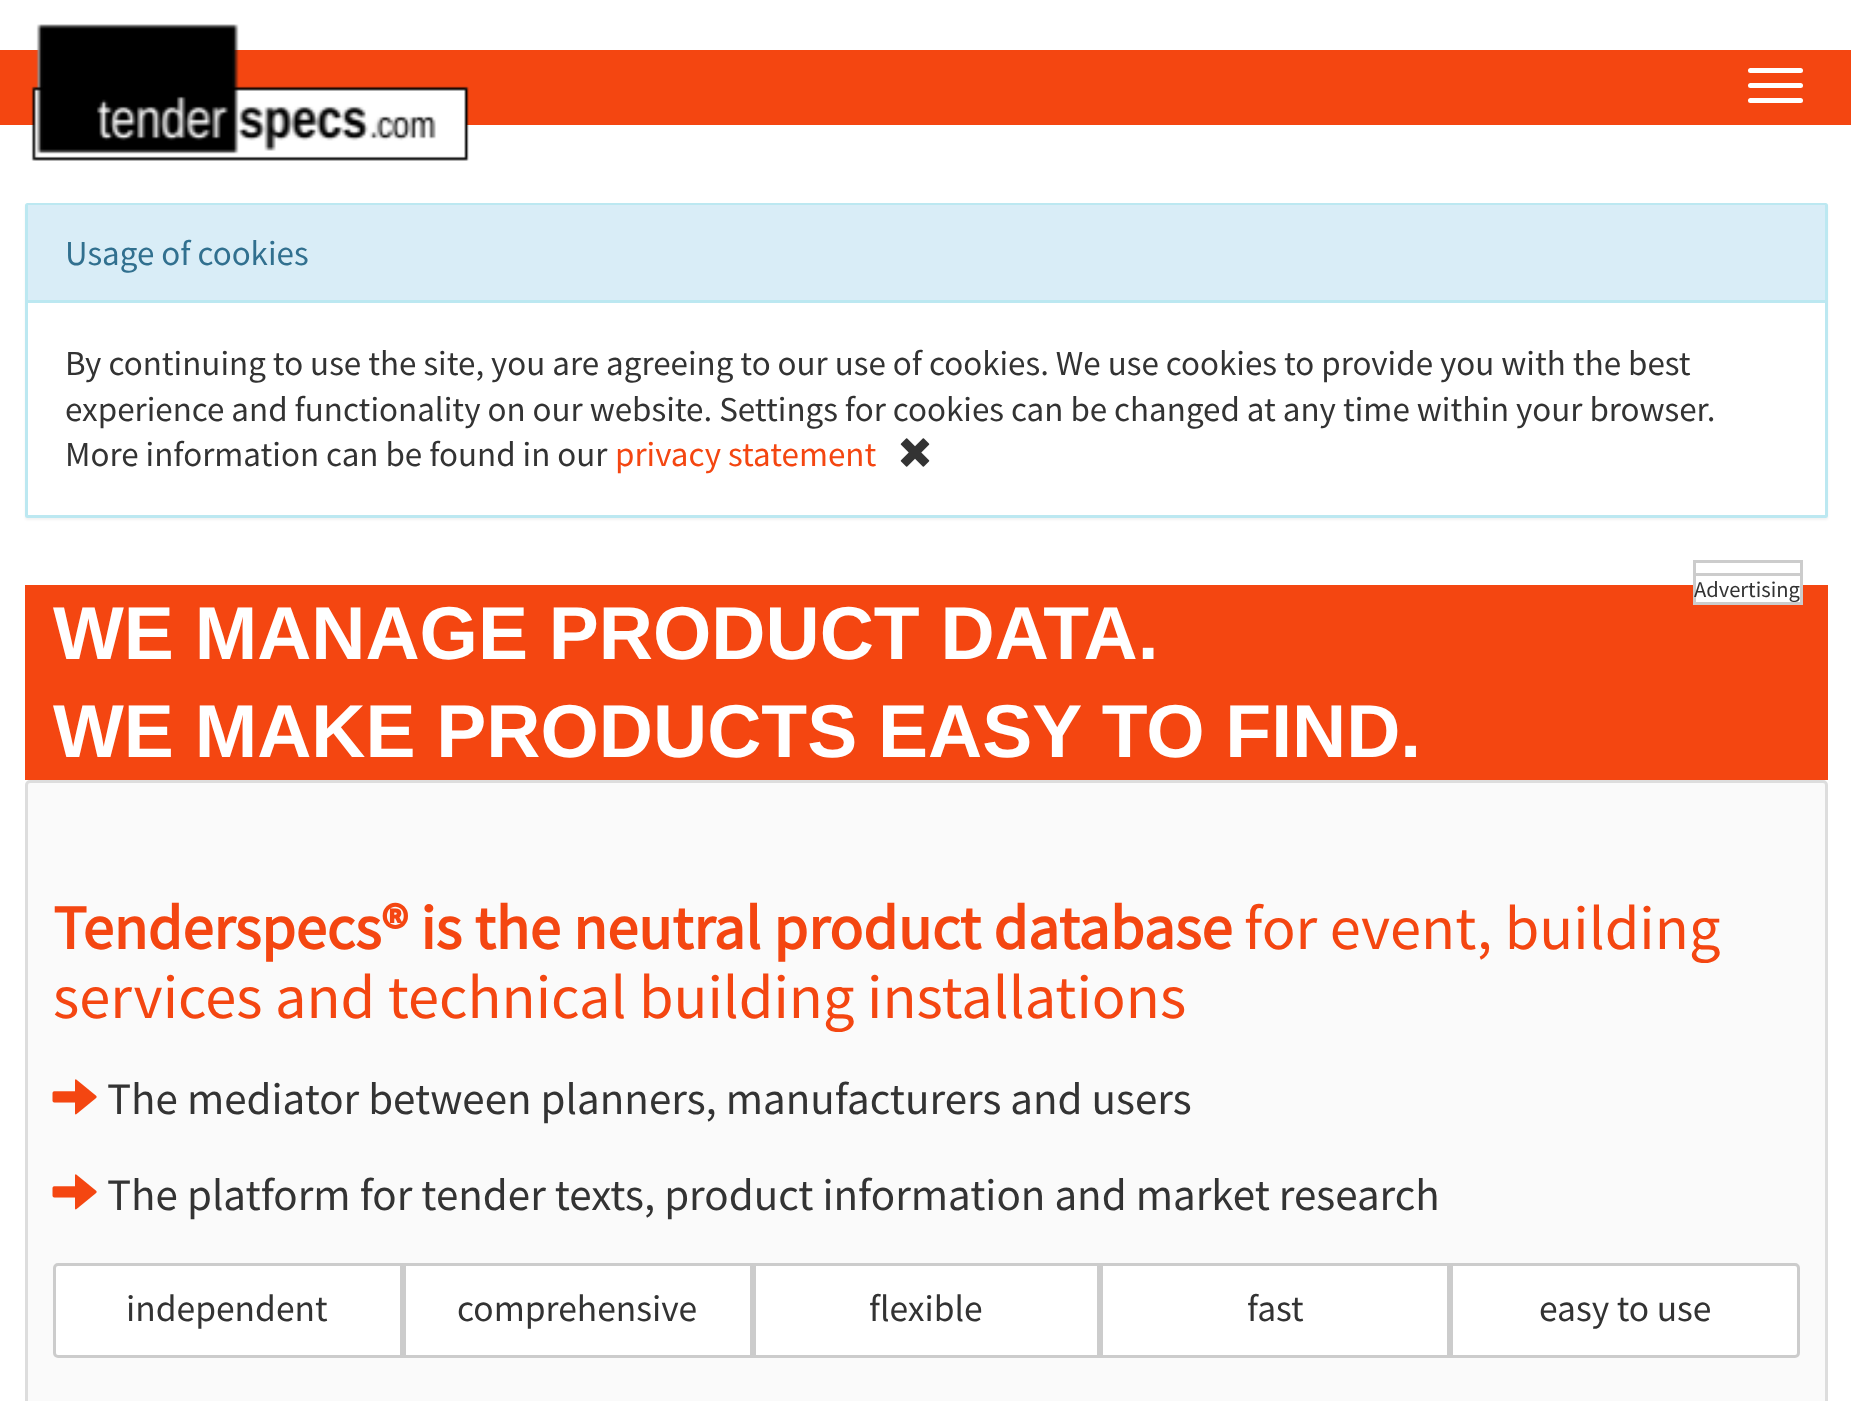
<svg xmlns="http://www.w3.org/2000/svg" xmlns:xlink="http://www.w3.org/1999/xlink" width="1851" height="1401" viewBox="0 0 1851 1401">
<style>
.cls-1{font:35px Source Sans Pro;fill:#31708f}
.cls-2{font:35px Source Sans Pro;fill:#333333}
.cls-3{font:35px Source Sans Pro;fill:#f44611}
.cls-4{font:22.5px Source Sans Pro;fill:#333333}
.cls-5{font:bold 75px Liberation Sans;fill:#ffffff}
.cls-6{font:bold 62.5px Source Sans Pro;fill:#f44611}
.cls-7{font:62.5px Source Sans Pro;fill:#f44611}
.cls-8{font:45px Source Sans Pro;fill:#333333}
.cls-9{font:37.5px Source Sans Pro;fill:#333333}
</style>
<rect width="100%" height="100%" fill="#ffffff"/>
<rect fill="#f44611" x="0" y="50" width="1851" height="75"/>
<image xlink:href="image0.png" x="31" y="24" width="438" height="137"/>
<rect fill="#ffffff" x="1748" y="68" width="55" height="5" rx="2.5"/>
<rect fill="#ffffff" x="1748" y="83" width="55" height="5" rx="2.5"/>
<rect fill="#ffffff" x="1748" y="98" width="55" height="5" rx="2.5"/>
<rect fill="#000000" fill-opacity="0.05" filter="blur(1px)" x="25" y="205" width="1803" height="315" rx="2.5"/>
<rect fill="#ffffff" stroke="#bce8f1" stroke-width="3" x="26.5" y="204.5" width="1800" height="312" rx="1"/>
<rect fill="#d9edf7" x="28" y="205" width="1797" height="95"/>
<rect fill="#bce8f1" x="28" y="300" width="1797" height="3"/>
<image xlink:href="image1.png" x="900" y="438" width="30" height="29"/>
<rect fill="#f44611" x="25" y="585" width="1803" height="195"/>
<rect fill="none" stroke="#cccccc" stroke-width="3" x="1694.5" y="561.5" width="107" height="30"/>
<rect fill="#ffffff" x="1696" y="585" width="104" height="17"/>
<rect fill="none" stroke="#cccccc" stroke-width="3" x="1694.5" y="574.5" width="107" height="29"/>
<rect fill="#fafafa" stroke="#dddddd" stroke-width="3" x="26.5" y="781.5" width="1800" height="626" rx="3.5"/>
<image xlink:href="image2.png" x="52" y="1079" width="45" height="36"/>
<image xlink:href="image2.png" x="52" y="1174" width="45" height="36"/>
<path fill="#ffffff" stroke="#cccccc" stroke-width="3" d="M58 1264.5H401.5V1356.5H58C56 1356.5 54.5 1355 54.5 1353V1268C54.5 1266 56 1264.5 58 1264.5Z"/>
<rect fill="#ffffff" stroke="#cccccc" stroke-width="3" x="404.5" y="1264.5" width="347" height="92"/>
<rect fill="#ffffff" stroke="#cccccc" stroke-width="3" x="754.5" y="1264.5" width="344" height="92"/>
<rect fill="#ffffff" stroke="#cccccc" stroke-width="3" x="1101.5" y="1264.5" width="347" height="92"/>
<path fill="#ffffff" stroke="#cccccc" stroke-width="3" d="M1451.5 1264.5H1795C1797 1264.5 1798.5 1266 1798.5 1268V1353C1798.5 1355 1797 1356.5 1795 1356.5H1451.5Z"/>
<text class="cls-1" x="65" y="265">Usage of cookies</text>
<text class="cls-2"><tspan x="65" y="375">By continuing to use the site, you are agreeing to our use of cookies. We use cookies to provide you with the best</tspan><tspan x="65" y="421">experience and functionality on our website. Settings for cookies can be changed at any time within your browser.</tspan><tspan x="65" y="466">More information can be found in our</tspan></text>
<text class="cls-3" x="615" y="466">privacy statement</text>
<text class="cls-4" x="1694" y="597">Advertising</text>
<text class="cls-5"><tspan x="53" y="659">WE MANAGE PRODUCT DATA.</tspan><tspan x="53" y="757">WE MAKE PRODUCTS EASY TO FIND.</tspan></text>
<text class="cls-6" x="53" y="949">Tenderspecs® is the neutral product database</text>
<text class="cls-7" x="1244" y="949">for event, building</text>
<text class="cls-7" x="53" y="1018">services and technical building installations</text>
<text class="cls-8" x="107" y="1114">The mediator between planners, manufacturers and users</text>
<text class="cls-8" x="107" y="1210">The platform for tender texts, product information and market research</text>
<text class="cls-9" x="126" y="1321">independent</text>
<text class="cls-9" x="457" y="1321">comprehensive</text>
<text class="cls-9" x="869" y="1321">flexible</text>
<text class="cls-9" x="1247" y="1321">fast</text>
<text class="cls-9" x="1539" y="1321">easy to use</text>
</svg>
